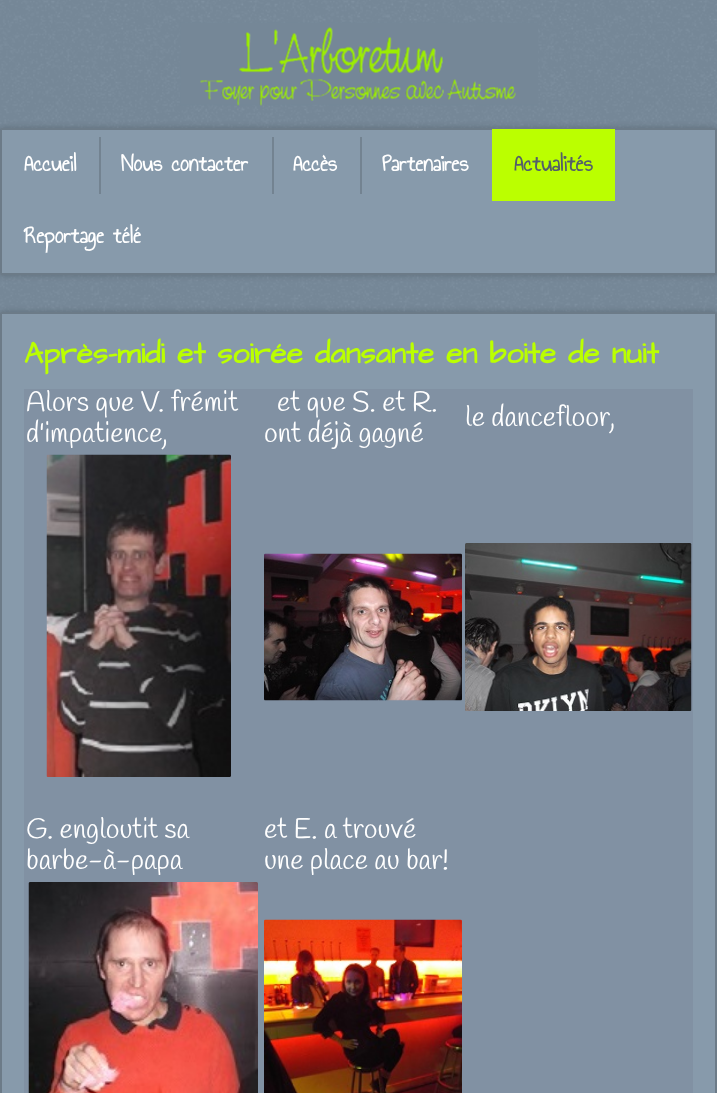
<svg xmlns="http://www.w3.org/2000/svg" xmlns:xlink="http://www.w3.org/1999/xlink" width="717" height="1093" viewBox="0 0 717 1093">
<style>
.cls-1{font:bold 24px Annie Use Your Telescope;fill:#ffffff}
.cls-2{font:bold 24px Annie Use Your Telescope;fill:#545f69}
.cls-3{font:bold 30px Architects Daughter;fill:#bbff00}
.cls-4{font:28px Handlee;fill:#ffffff}
</style>
<rect width="100%" height="100%" fill="#ffffff"/>
<image xlink:href="image0.png" x="0" y="0" width="717" height="314"/>
<image xlink:href="image1.png" x="180" y="22" width="358" height="84"/>
<rect fill="#000000" fill-opacity="0.2" filter="blur(3px)" x="0" y="128" width="717" height="147" rx="1.5"/>
<rect fill="#879aab" x="0" y="128" width="717" height="147" rx="1.5"/>
<rect fill="none" stroke="#000000" stroke-opacity="0.2" stroke-width="2" x="1" y="129" width="715" height="145" rx="0.5"/>
<rect fill="#738391" x="99" y="137" width="2" height="57"/>
<rect fill="#738391" x="272" y="137" width="2" height="57"/>
<rect fill="#738391" x="360" y="137" width="2" height="57"/>
<rect fill="#bbff00" x="492" y="129" width="123" height="72"/>
<rect fill="#000000" fill-opacity="0.2" filter="blur(3px)" x="0" y="312" width="717" height="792" rx="1.5"/>
<rect fill="#879aab" x="0" y="312" width="717" height="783" rx="1.5"/>
<rect fill="none" stroke="#000000" stroke-opacity="0.2" stroke-width="2" x="1" y="313" width="715" height="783" rx="0.5"/>
<rect fill="#8191a3" x="24" y="389" width="669" height="704"/>
<image xlink:href="image2.png" x="46" y="454" width="185" height="323"/>
<image xlink:href="image3.png" x="264" y="553" width="198" height="148"/>
<image xlink:href="image4.png" x="465" y="543" width="227" height="168"/>
<image xlink:href="image5.png" x="28" y="882" width="230" height="211"/>
<image xlink:href="image6.png" x="264" y="919" width="198" height="174"/>
<text class="cls-1" x="24" y="171">Accueil</text>
<text class="cls-1" x="121" y="171">Nous contacter</text>
<text class="cls-1" x="293" y="171">Accès</text>
<text class="cls-1" x="382" y="171">Partenaires</text>
<text class="cls-2" x="514" y="171">Actualités</text>
<text class="cls-1" x="24" y="243">Reportage télé</text>
<text class="cls-3" x="24" y="363">Après-midi et soirée dansante en boite de nuit</text>
<text class="cls-4"><tspan x="26" y="411">Alors que V. frémit</tspan><tspan x="26" y="442">d'impatience,</tspan></text>
<text class="cls-4" x="277" y="411">et que S. et R.</text>
<text class="cls-4" x="264" y="442">ont déjà gagné</text>
<text class="cls-4" x="465" y="426">le dancefloor,</text>
<text class="cls-4"><tspan x="26" y="838">G. engloutit sa</tspan><tspan x="26" y="869">barbe-à-papa</tspan></text>
<text class="cls-4"><tspan x="264" y="838">et E. a trouvé</tspan><tspan x="264" y="869">une place au bar!</tspan></text>
</svg>
